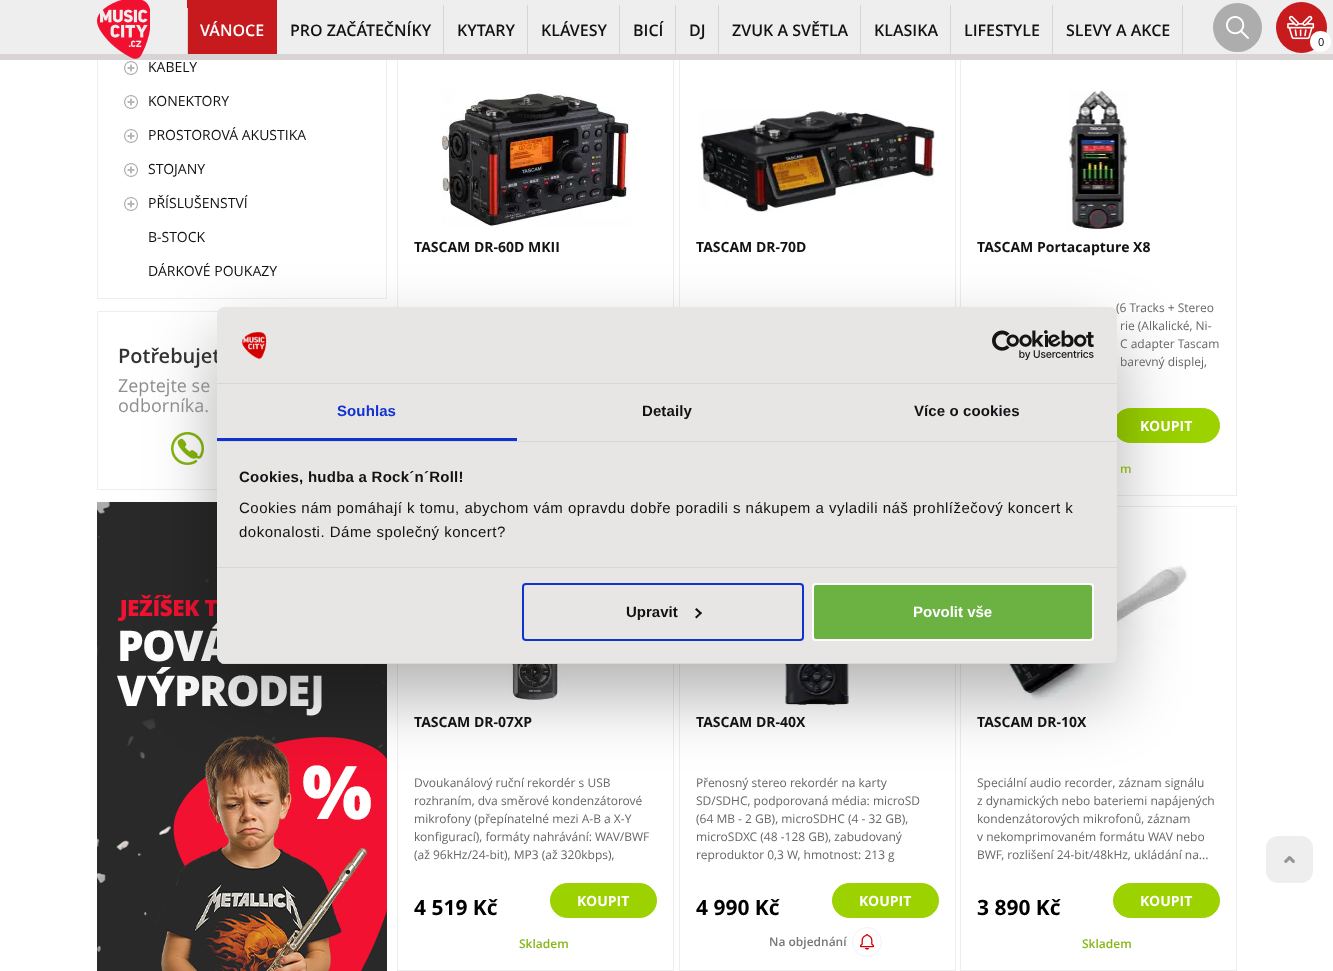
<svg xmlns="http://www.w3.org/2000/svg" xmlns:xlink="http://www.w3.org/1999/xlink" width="1333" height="971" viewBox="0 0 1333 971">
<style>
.cls-1{font:600 16px Open Sans;fill:#ffffff}
.cls-2{font:600 16px Open Sans;fill:#121214}
.cls-3{font:11px Open Sans;fill:#000000}
.cls-4{font:14px Open Sans;fill:#121214}
.cls-5{font:600 20px Open Sans;fill:#333333}
.cls-6{font:18px Open Sans;fill:#8e8e92}
.cls-7{font:bold 14px Open Sans;fill:#121214}
.cls-8{font:12px Open Sans;fill:#666666}
.cls-9{font:bold 14px Open Sans;fill:#ffffff}
.cls-10{font:600 12px Open Sans;fill:#87b518}
.cls-11{font:bold 21px Open Sans;fill:#000000}
.cls-12{font:600 12px Open Sans;fill:#777777}
.cls-13{font:bold 15px Liberation Sans;letter-spacing:0.1px;fill:#1032cf}
.cls-14{font:bold 15px Liberation Sans;letter-spacing:0.1px;fill:#121214}
.cls-15{font:bold 15px Liberation Sans;letter-spacing:0.25px;fill:#121214}
.cls-16{font:15px Liberation Sans;letter-spacing:0.5px;fill:#121214}
.cls-17{font:bold 15px Liberation Sans;fill:#121214}
.cls-18{font:bold 15px Liberation Sans;fill:#ffffff}
</style>
<defs>
<clipPath id="clip1"><rect x="217" y="307" width="900" height="357" rx="8"/></clipPath>
</defs>
<rect width="100%" height="100%" fill="#ffffff"/>
<rect fill="none" stroke="#eeeeee" x="97.5" y="-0.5" width="289" height="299"/>
<rect fill="none" stroke="#eeeeee" x="397.5" y="31.5" width="276" height="464"/>
<rect fill="none" stroke="#eeeeee" x="679.5" y="31.5" width="276" height="464"/>
<rect fill="none" stroke="#eeeeee" x="960.5" y="31.5" width="276" height="464"/>
<rect fill="#eeeeee" x="0" y="0" width="1333" height="54"/>
<rect fill="#d9d4d4" x="0" y="54" width="1333" height="6"/>
<image xlink:href="image0.png" x="97" y="0" width="53" height="59"/>
<rect fill="#c71a1e" x="187" y="0" width="90" height="54"/>
<rect fill="#d6d6d6" x="187" y="8" width="1" height="46"/>
<rect fill="#d6d6d6" x="443" y="5" width="1" height="49"/>
<rect fill="#d6d6d6" x="527" y="5" width="1" height="49"/>
<rect fill="#d6d6d6" x="619" y="5" width="1" height="49"/>
<rect fill="#d6d6d6" x="675" y="5" width="1" height="49"/>
<rect fill="#d6d6d6" x="718" y="5" width="1" height="49"/>
<rect fill="#d6d6d6" x="860" y="5" width="1" height="49"/>
<rect fill="#d6d6d6" x="950" y="5" width="1" height="49"/>
<rect fill="#d6d6d6" x="1052" y="5" width="1" height="49"/>
<rect fill="#d6d6d6" x="1182" y="5" width="1" height="49"/>
<circle fill="#adadad" cx="1237.5" cy="27.5" r="24.5"/>
<image xlink:href="image1.png" x="1226" y="16" width="23" height="23"/>
<circle fill="#c71b1e" cx="1301.5" cy="27.5" r="25.5"/>
<image xlink:href="image2.png" x="1287" y="15" width="28" height="25"/>
<rect fill="#ffffff" x="1310" y="31" width="21" height="21" rx="10"/>
<image xlink:href="image3.png" x="124" y="61" width="14" height="14"/>
<image xlink:href="image3.png" x="124" y="95" width="14" height="14"/>
<image xlink:href="image3.png" x="124" y="129" width="14" height="14"/>
<image xlink:href="image3.png" x="124" y="163" width="14" height="14"/>
<image xlink:href="image3.png" x="124" y="197" width="14" height="14"/>
<rect fill="none" stroke="#eeeeee" x="97.5" y="311.5" width="289" height="178"/>
<image xlink:href="image4.png" x="171" y="432" width="33" height="33"/>
<image xlink:href="image5.png" x="97" y="502" width="290" height="469"/>
<image xlink:href="image6.png" x="442" y="90" width="188" height="137"/>
<image xlink:href="image7.png" x="699" y="110" width="236" height="102"/>
<image xlink:href="image8.png" x="1068" y="90" width="60" height="140"/>
<rect fill="#9bd200" stroke="#9bd200" x="1113.5" y="408.5" width="106" height="34" rx="17"/>
<rect fill="none" stroke="#eeeeee" x="397.5" y="506.5" width="276" height="464"/>
<image xlink:href="image9.png" x="505" y="664" width="60" height="37"/>
<rect fill="#9bd200" stroke="#9bd200" x="550.5" y="883.5" width="106" height="34" rx="17"/>
<rect fill="none" stroke="#eeeeee" x="679.5" y="506.5" width="276" height="464"/>
<image xlink:href="image10.png" x="785" y="664" width="64" height="41"/>
<rect fill="#9bd200" stroke="#9bd200" x="832.5" y="883.5" width="106" height="34" rx="17"/>
<circle fill="none" stroke="#f2f2f2" cx="867" cy="942" r="14.5"/>
<image xlink:href="image11.png" x="860" y="934" width="14" height="16"/>
<rect fill="none" stroke="#eeeeee" x="960.5" y="506.5" width="276" height="464"/>
<image xlink:href="image12.png" x="1003" y="565" width="185" height="136"/>
<rect fill="#9bd200" stroke="#9bd200" x="1113.5" y="883.5" width="106" height="34" rx="17"/>
<rect fill="#eeeeee" x="1266" y="836" width="47" height="47" rx="12"/>
<image xlink:href="image13.png" x="1284" y="856" width="11" height="7"/>
<rect fill="#000000" fill-opacity="0.3" filter="blur(34px)" x="217" y="339" width="900" height="357" rx="8"/>
<text class="cls-1" x="200" y="36">VÁNOCE</text>
<text class="cls-2" x="290" y="36">PRO ZAČÁTEČNÍKY</text>
<text class="cls-2" x="457" y="36">KYTARY</text>
<text class="cls-2" x="541" y="36">KLÁVESY</text>
<text class="cls-2" x="633" y="36">BICÍ</text>
<text class="cls-2" x="689" y="36">DJ</text>
<text class="cls-2" x="732" y="36">ZVUK A SVĚTLA</text>
<text class="cls-2" x="874" y="36">KLASIKA</text>
<text class="cls-2" x="964" y="36">LIFESTYLE</text>
<text class="cls-2" x="1066" y="36">SLEVY A AKCE</text>
<text class="cls-3" x="1318" y="46">0</text>
<text class="cls-4" x="148" y="72">KABELY</text>
<text class="cls-4" x="148" y="106">KONEKTORY</text>
<text class="cls-4" x="148" y="140">PROSTOROVÁ AKUSTIKA</text>
<text class="cls-4" x="148" y="174">STOJANY</text>
<text class="cls-4" x="148" y="208">PŘÍSLUŠENSTVÍ</text>
<text class="cls-4" x="148" y="242">B-STOCK</text>
<text class="cls-4" x="148" y="276">DÁRKOVÉ POUKAZY</text>
<text class="cls-5" x="118" y="363">Potřebujet</text>
<text class="cls-6"><tspan x="118" y="392">Zeptejte se</tspan><tspan x="118" y="412">odborníka.</tspan></text>
<text class="cls-7" x="414" y="252">TASCAM DR-60D MKII</text>
<text class="cls-7" x="696" y="252">TASCAM DR-70D</text>
<text class="cls-7" x="977" y="252">TASCAM Portacapture X8</text>
<text class="cls-8" x="1116" y="312">(6 Tracks + Stereo</text>
<text class="cls-8"><tspan x="1120" y="330">rie (Alkalické, Ni-</tspan><tspan x="1120" y="348">C adapter Tascam</tspan><tspan x="1120" y="366">barevný displej,</tspan></text>
<text class="cls-9" x="1140" y="431">KOUPIT</text>
<text class="cls-10" x="1120" y="473">m</text>
<text class="cls-7" x="414" y="727">TASCAM DR-07XP</text>
<text class="cls-8"><tspan x="414" y="787">Dvoukanálový ruční rekordér s USB</tspan><tspan x="414" y="805">rozhraním, dva směrové kondenzátorové</tspan><tspan x="414" y="823">mikrofony (přepínatelné mezi A-B a X-Y</tspan><tspan x="414" y="841">konfigurací), formáty nahrávání: WAV/BWF</tspan><tspan x="414" y="859">(až 96kHz/24-bit), MP3 (až 320kbps),</tspan></text>
<text class="cls-11" x="414" y="915">4 519 Kč</text>
<text class="cls-9" x="577" y="906">KOUPIT</text>
<text class="cls-10" x="519" y="948">Skladem</text>
<text class="cls-7" x="696" y="727">TASCAM DR-40X</text>
<text class="cls-8"><tspan x="696" y="787">Přenosný stereo rekordér na karty</tspan><tspan x="696" y="805">SD/SDHC, podporovaná média: microSD</tspan><tspan x="696" y="823">(64 MB - 2 GB), microSDHC (4 - 32 GB),</tspan><tspan x="696" y="841">microSDXC (48 -128 GB), zabudovaný</tspan><tspan x="696" y="859">reproduktor 0,3 W, hmotnost: 213 g</tspan></text>
<text class="cls-11" x="696" y="915">4 990 Kč</text>
<text class="cls-9" x="859" y="906">KOUPIT</text>
<text class="cls-12" x="769" y="946">Na objednání</text>
<text class="cls-7" x="977" y="727">TASCAM DR-10X</text>
<text class="cls-8"><tspan x="977" y="787">Speciální audio recorder, záznam signálu</tspan><tspan x="977" y="805">z dynamických nebo bateriemi napájených</tspan><tspan x="977" y="823">kondenzátorových mikrofonů, záznam</tspan><tspan x="977" y="841">v nekomprimovaném formátu WAV nebo</tspan><tspan x="977" y="859">BWF, rozlišení 24-bit/48kHz, ukládání na...</tspan></text>
<text class="cls-11" x="977" y="915">3 890 Kč</text>
<text class="cls-9" x="1140" y="906">KOUPIT</text>
<text class="cls-10" x="1082" y="948">Skladem</text>
<rect fill="#e8e5e5" x="217" y="307" width="900" height="357" rx="8"/>
<rect fill="#d6d6d6" x="217" y="383" width="900" height="1"/>
<image xlink:href="image14.png" x="241" y="332" width="26" height="27"/>
<image xlink:href="image15.png" x="992" y="330" width="102" height="30"/>
<rect fill="#d6d6d6" x="217" y="441" width="900" height="1"/>
<rect fill="#1032cf" x="217" y="438" width="300" height="3"/>
<text class="cls-13" x="337" y="416">Souhlas</text>
<text class="cls-14" x="642" y="416">Detaily</text>
<text class="cls-14" x="914" y="416">Více o cookies</text>
<rect fill="#d6d6d6" x="217" y="567" width="900" height="1"/>
<text class="cls-15" x="239" y="482">Cookies, hudba a Rock´n´Roll!</text>
<text class="cls-16"><tspan x="239" y="513">Cookies nám pomáhají k tomu, abychom vám opravdu dobře poradili s nákupem a vyladili náš prohlížečový koncert k</tspan><tspan x="239" y="537">dokonalosti. Dáme společný koncert?</tspan></text>
<g clip-path="url(#clip1)">
<rect fill="#d6d6d6" x="217" y="663" width="900" height="1"/>
</g>
<rect fill="none" stroke="#1032cf" stroke-width="2" x="523" y="584" width="280" height="56" rx="3"/>
<text class="cls-17" x="626" y="617">Upravit</text>
<path fill="#141414" d="M696.5 608L702 613L700.5 614.5L695 609.5Z"/>
<path fill="#141414" d="M700.5 612L702 613L696.5 618.5L695 617Z"/>
<rect fill="#6cb243" stroke="#ffffff" stroke-width="2" x="813" y="584" width="280" height="56" rx="3"/>
<text class="cls-18" x="913" y="617">Povolit vše</text>
</svg>
